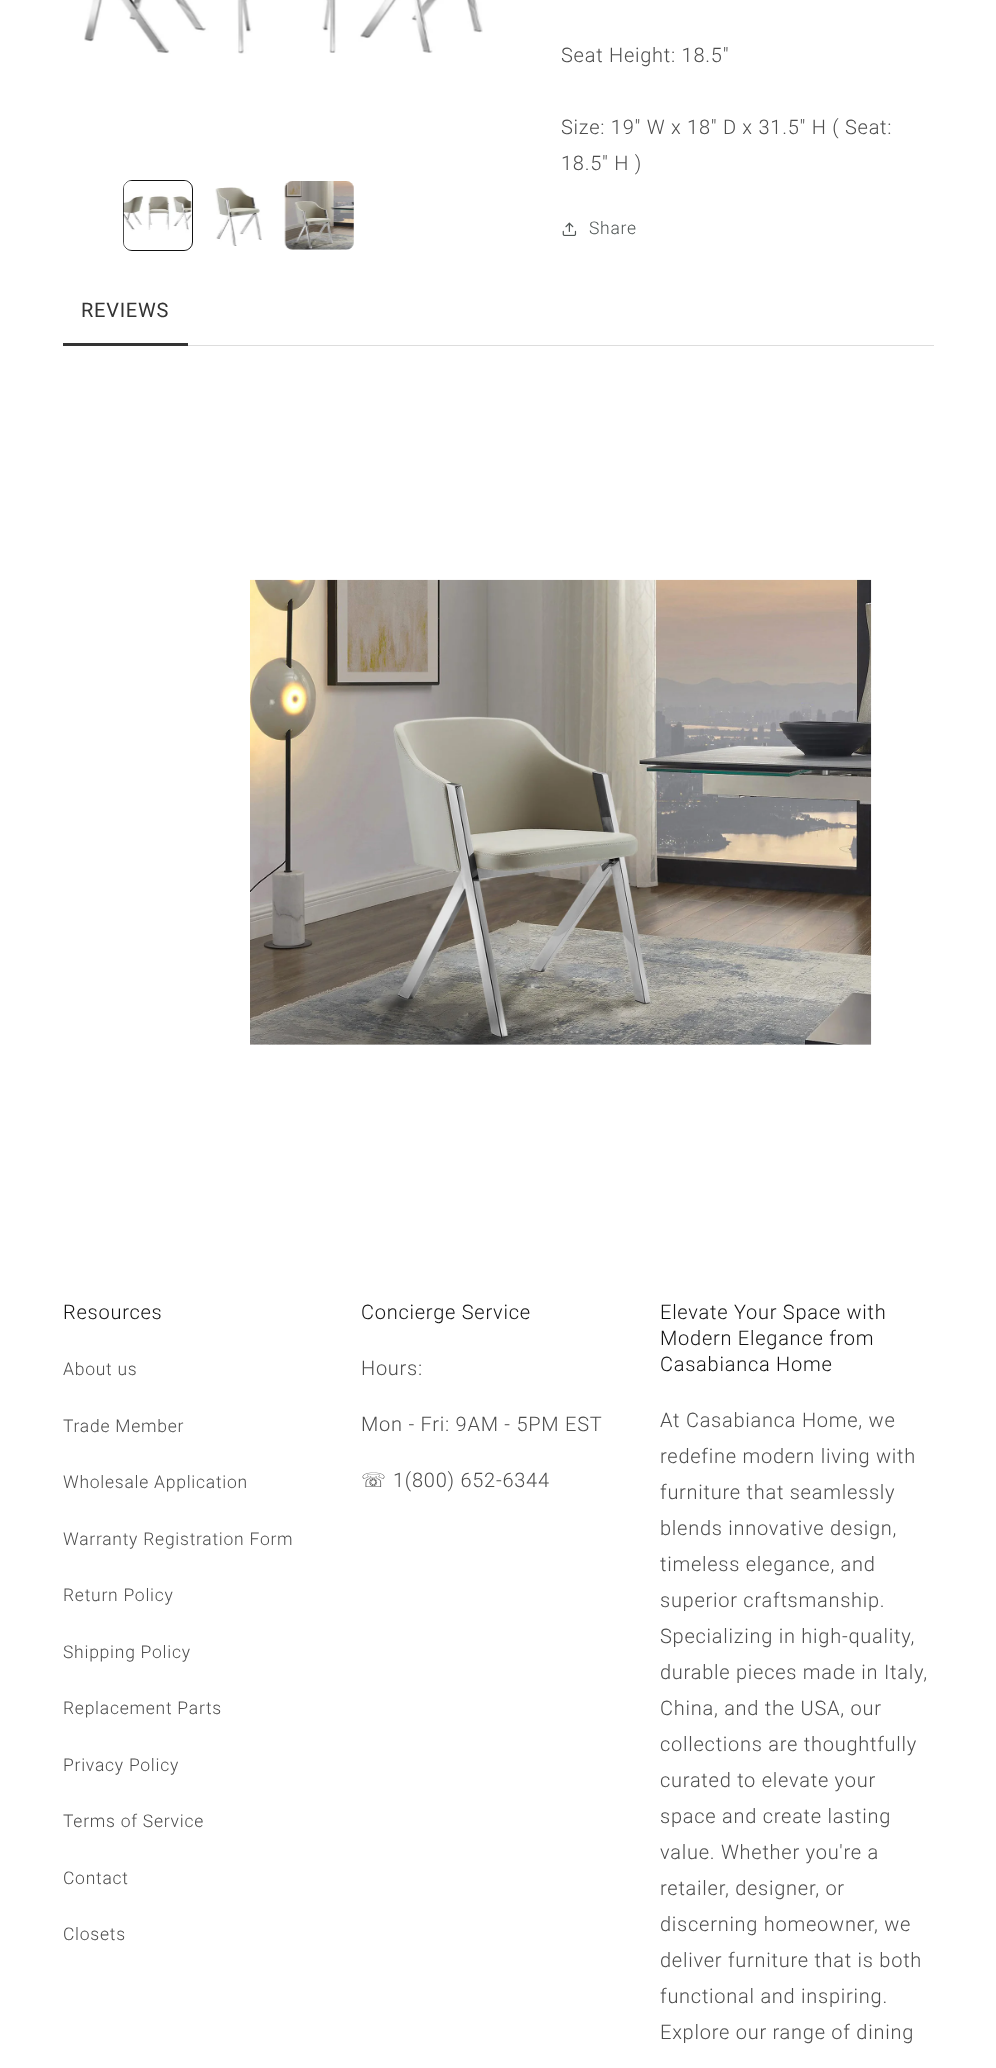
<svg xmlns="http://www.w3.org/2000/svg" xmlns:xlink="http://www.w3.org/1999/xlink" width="996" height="2068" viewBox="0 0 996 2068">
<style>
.cls-1{font:300 20px Roboto;letter-spacing:0.75px;fill:#4d4d4d}
.cls-2{font:300 17.5px Roboto;letter-spacing:0.75px;fill:#505655}
.cls-3{font:20px Roboto;letter-spacing:0.75px;fill:#333333}
.cls-4{font:300 20px Roboto;letter-spacing:0.75px;fill:#111111}
.cls-5{font:300 17.5px Roboto;letter-spacing:0.75px;fill:#4d4d4d}
.cls-6{font:20px DejaVu Sans;letter-spacing:0.75px;fill:#4d4d4d}
</style>
<rect width="100%" height="100%" fill="#ffffff"/>
<image xlink:href="image0.png" x="84" y="0" width="399" height="54"/>
<rect fill="none" stroke="#111111" x="123.5" y="180.5" width="69" height="70" rx="8.5"/>
<image xlink:href="image1.png" x="123" y="181" width="69" height="69"/>
<image xlink:href="image2.png" x="215" y="187" width="47" height="59"/>
<image xlink:href="image3.png" x="284" y="181" width="70" height="69"/>
<image xlink:href="image4.png" x="562" y="222" width="15" height="14"/>
<rect fill="#dddddd" x="188" y="345" width="746" height="1"/>
<rect fill="#333333" x="63" y="343" width="125" height="3"/>
<rect fill="#e8e8e8" x="250" y="1044" width="621" height="1"/>
<image xlink:href="image5.png" x="250" y="579" width="622" height="466"/>
<text class="cls-1" x="561" y="62">Seat Height: 18.5"</text>
<text class="cls-1"><tspan x="561" y="134">Size: 19" W x 18" D x 31.5" H ( Seat:</tspan><tspan x="561" y="170">18.5" H )</tspan></text>
<text class="cls-2" x="589" y="234">Share</text>
<text class="cls-3" x="81" y="317">REVIEWS</text>
<text class="cls-4" x="63" y="1319">Resources</text>
<text class="cls-5" x="63" y="1375">About us</text>
<text class="cls-5" x="63" y="1432">Trade Member</text>
<text class="cls-5" x="63" y="1488">Wholesale Application</text>
<text class="cls-5" x="63" y="1545">Warranty Registration Form</text>
<text class="cls-5" x="63" y="1601">Return Policy</text>
<text class="cls-5" x="63" y="1658">Shipping Policy</text>
<text class="cls-5" x="63" y="1714">Replacement Parts</text>
<text class="cls-5" x="63" y="1771">Privacy Policy</text>
<text class="cls-5" x="63" y="1827">Terms of Service</text>
<text class="cls-5" x="63" y="1884">Contact</text>
<text class="cls-5" x="63" y="1940">Closets</text>
<text class="cls-4" x="361" y="1319">Concierge Service</text>
<text class="cls-1" x="361" y="1375">Hours:</text>
<text class="cls-1" x="361" y="1431">Mon - Fri: 9AM - 5PM EST</text>
<text class="cls-6" x="361" y="1487">☏</text>
<text class="cls-1" x="393" y="1487">1(800) 652-6344</text>
<text class="cls-4"><tspan x="660" y="1319">Elevate Your Space with</tspan><tspan x="660" y="1345">Modern Elegance from</tspan><tspan x="660" y="1371">Casabianca Home</tspan></text>
<text class="cls-1"><tspan x="660" y="1427">At Casabianca Home, we</tspan><tspan x="660" y="1463">redefine modern living with</tspan><tspan x="660" y="1499">furniture that seamlessly</tspan><tspan x="660" y="1535">blends innovative design,</tspan><tspan x="660" y="1571">timeless elegance, and</tspan><tspan x="660" y="1607">superior craftsmanship.</tspan><tspan x="660" y="1643">Specializing in high-quality,</tspan><tspan x="660" y="1679">durable pieces made in Italy,</tspan><tspan x="660" y="1715">China, and the USA, our</tspan><tspan x="660" y="1751">collections are thoughtfully</tspan><tspan x="660" y="1787">curated to elevate your</tspan><tspan x="660" y="1823">space and create lasting</tspan><tspan x="660" y="1859">value. Whether you're a</tspan><tspan x="660" y="1895">retailer, designer, or</tspan><tspan x="660" y="1931">discerning homeowner, we</tspan><tspan x="660" y="1967">deliver furniture that is both</tspan><tspan x="660" y="2003">functional and inspiring.</tspan><tspan x="660" y="2039">Explore our range of dining</tspan></text>
</svg>
